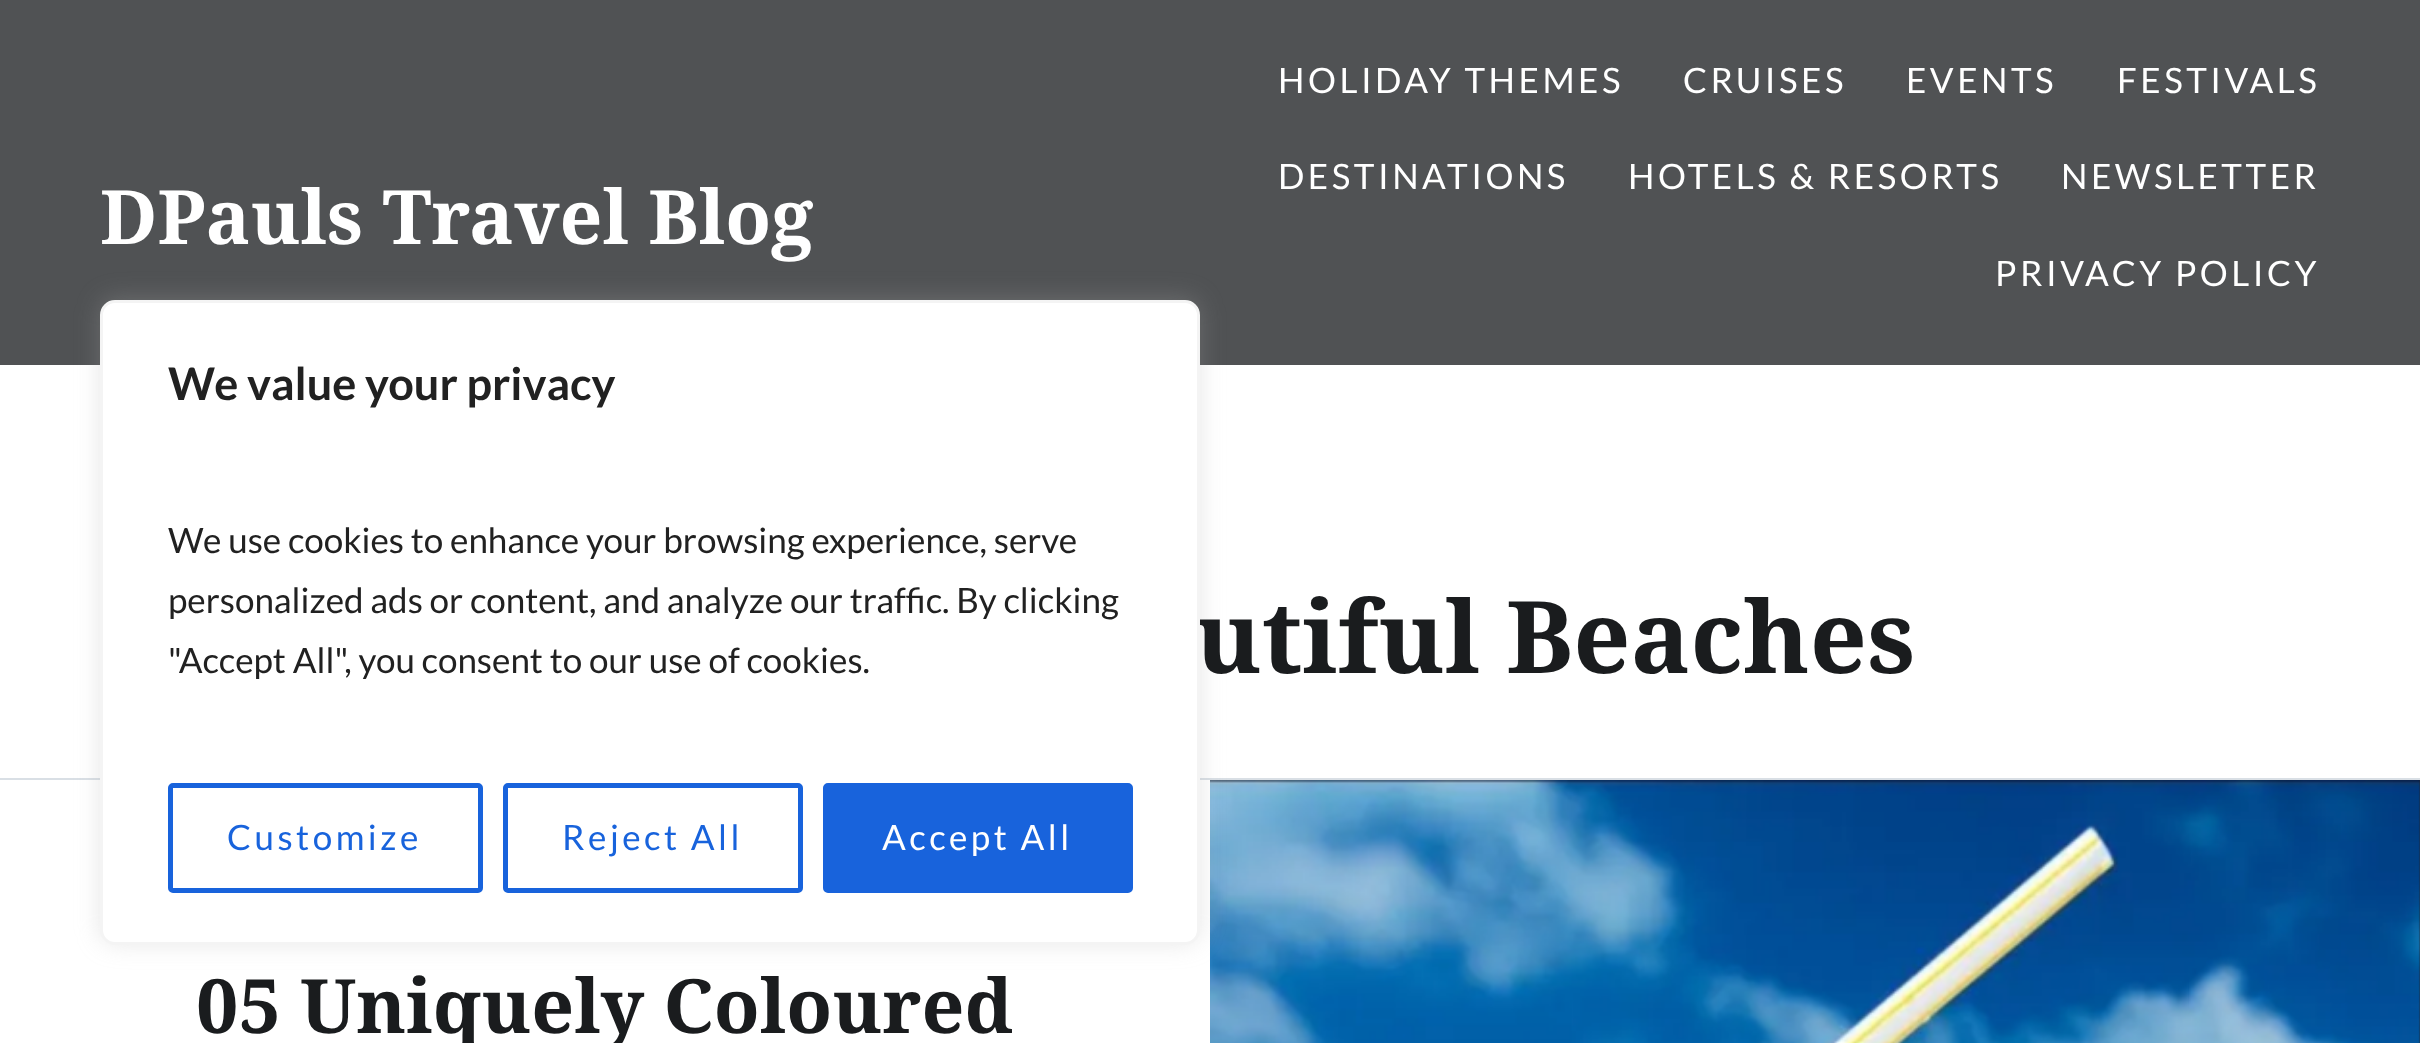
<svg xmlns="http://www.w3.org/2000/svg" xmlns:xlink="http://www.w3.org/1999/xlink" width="2420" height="1043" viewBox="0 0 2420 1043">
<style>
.cls-1{font:bold 75px Noto Serif;fill:#ffffff}
.cls-2{font:35px Lato;letter-spacing:3.5px;fill:#ffffff}
.cls-3{font:bold 100px Noto Serif;fill:#1a1c1e}
.cls-4{font:bold 75px Noto Serif;fill:#1a1c1e}
.cls-5{font:bold 45px Lato;fill:#212121}
.cls-6{font:35px Lato;fill:#212121}
.cls-7{font:35px Lato;letter-spacing:3.5px;fill:#1863dc}
</style>
<rect width="100%" height="100%" fill="#ffffff"/>
<rect fill="#505254" x="0" y="0" width="2420" height="365"/>
<rect fill="#d9dfe5" x="0" y="778" width="2420" height="2"/>
<rect fill="#242629" x="2418" y="780" width="2" height="263"/>
<image xlink:href="image0.png" x="1210" y="780" width="1210" height="263"/>
<rect fill="#acabab" fill-opacity="0.3" filter="blur(12.5px)" x="100" y="298" width="1100" height="645" rx="15"/>
<text class="cls-1" x="100" y="244">DPauls Travel Blog</text>
<text class="cls-2" x="1278" y="93">HOLIDAY THEMES</text>
<text class="cls-2" x="1683" y="93">CRUISES</text>
<text class="cls-2" x="1906" y="93">EVENTS</text>
<text class="cls-2" x="2117" y="93">FESTIVALS</text>
<text class="cls-2" x="1278" y="189">DESTINATIONS</text>
<text class="cls-2" x="1628" y="189">HOTELS &amp; RESORTS</text>
<text class="cls-2" x="2061" y="189">NEWSLETTER</text>
<text class="cls-2" x="1995" y="286">PRIVACY POLICY</text>
<text class="cls-3" x="1195" y="673">utiful Beaches</text>
<text class="cls-4" x="196" y="1033">05 Uniquely Coloured</text>
<rect fill="#ffffff" stroke="#f4f4f4" stroke-width="3" x="101.5" y="301.5" width="1097" height="642" rx="13.5"/>
<text class="cls-5" x="168" y="400">We value your privacy</text>
<text class="cls-6"><tspan x="168" y="553">We use cookies to enhance your browsing experience, serve</tspan><tspan x="168" y="613">personalized ads or content, and analyze our traffic. By clicking</tspan><tspan x="168" y="673">"Accept All", you consent to our use of cookies.</tspan></text>
<rect fill="none" stroke="#1863dc" stroke-width="5" x="170.5" y="785.5" width="310" height="105" rx="2.5"/>
<text class="cls-7" x="227" y="850">Customize</text>
<rect fill="none" stroke="#1863dc" stroke-width="5" x="505.5" y="785.5" width="295" height="105" rx="2.5"/>
<text class="cls-7" x="562" y="850">Reject All</text>
<rect fill="#1863dc" stroke="#1863dc" stroke-width="5" x="825.5" y="785.5" width="305" height="105" rx="2.5"/>
<text class="cls-2" x="882" y="850">Accept All</text>
</svg>
